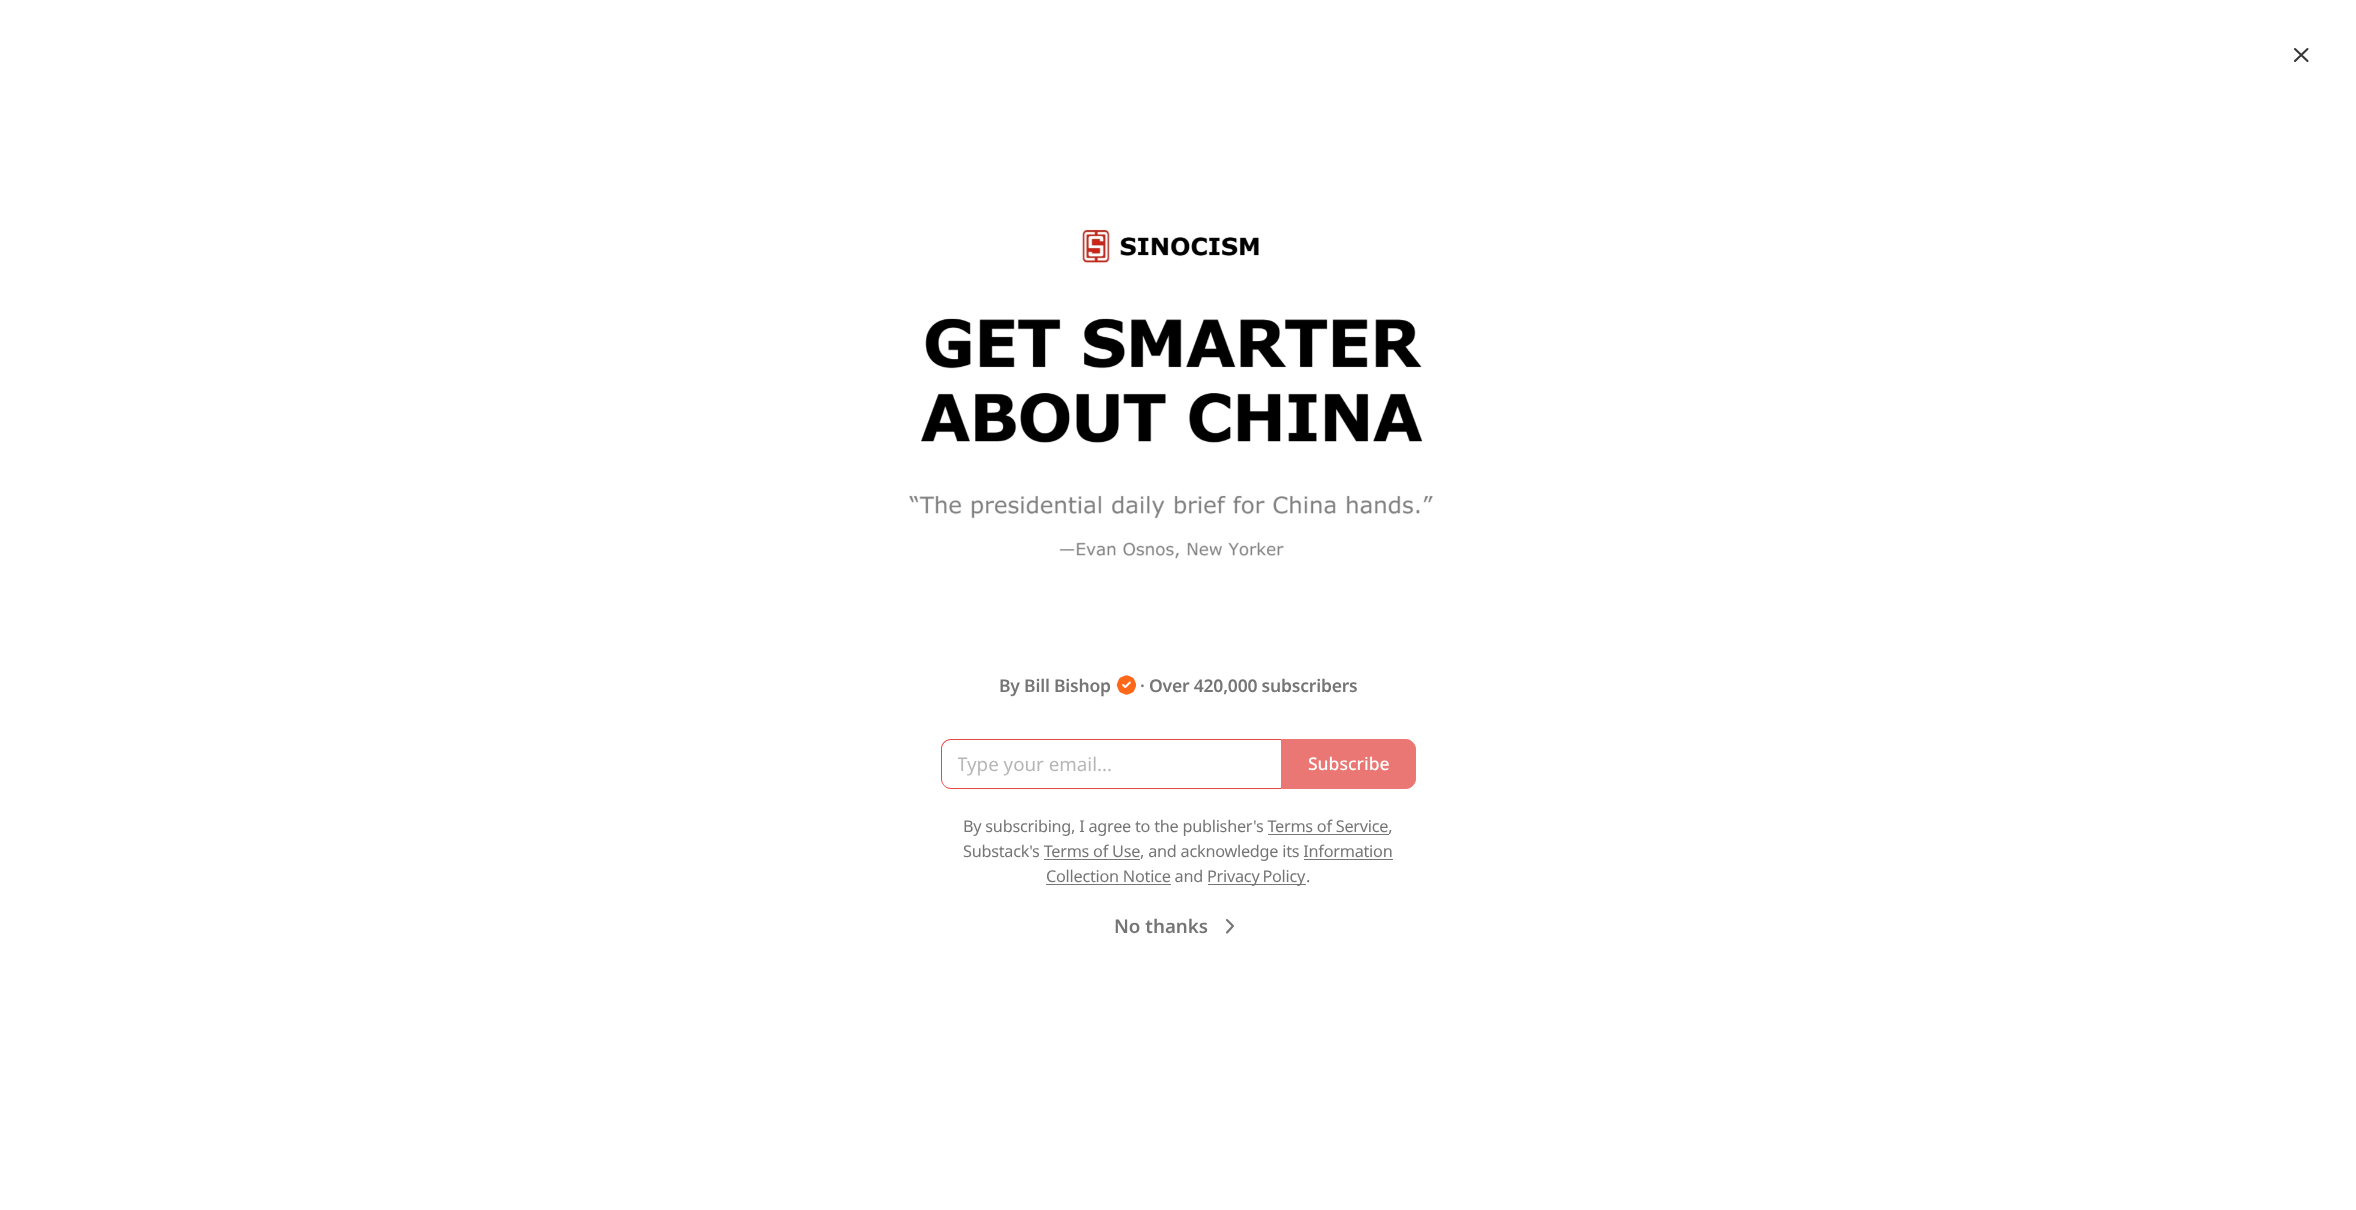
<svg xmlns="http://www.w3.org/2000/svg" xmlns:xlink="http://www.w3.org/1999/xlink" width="2356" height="1210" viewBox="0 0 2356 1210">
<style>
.cls-1{font:600 17.5px Noto Sans;letter-spacing:-0.2px;fill:#757575}
.cls-2{font:18.75px Noto Sans;fill:#b6b6b6}
.cls-3{font:500 17.5px Noto Sans;fill:#ffffff}
.cls-4{font:16.25px Noto Sans;letter-spacing:-0.25px;fill:#757575}
.cls-5{font:600 18.75px Noto Sans;fill:#757575}
</style>
<defs>
<clipPath id="clip1"><rect x="958" y="751" width="308" height="25"/></clipPath>
</defs>
<rect width="100%" height="100%" fill="#ffffff"/>
<path fill="none" stroke="#363737" stroke-width="2.1" stroke-linecap="round" stroke-linejoin="round" d="M2307.5 49L2295 61M2295 49L2307.5 61"/>
<image xlink:href="image0.png" x="909" y="229" width="524" height="330"/>
<image xlink:href="image1.png" x="1116" y="675" width="20" height="20"/>
<path fill="#e44945" fill-rule="evenodd" d="M951 739H1281V789H951C946 789 941 784 941 779V749C941 743 946 739 951 739ZM951 740H1281V788H951C946 788 942 784 942 779V749C942 744 946 740 951 740Z"/>
<path fill="#eb7774" stroke="#eb7774" d="M1281.5 739.5H1406C1411 739.5 1415.5 744 1415.5 749V779C1415.5 784 1411 788.5 1406 788.5H1281.5Z"/>
<rect fill="#777777" x="1046" y="884" width="125" height="1"/>
<rect fill="#777777" x="1208" y="884" width="98" height="1"/>
<path fill="none" stroke="#757575" stroke-width="2.1" stroke-linecap="round" stroke-linejoin="round" d="M1227 932.5L1233 926L1227 920"/>
<text class="cls-1" x="999" y="692">By Bill Bishop</text>
<text class="cls-1" x="1140" y="692">· Over 420,000 subscribers</text>
<g clip-path="url(#clip1)">
<text class="cls-2" x="957" y="771">Type your email...</text>
</g>
<text class="cls-3" x="1308" y="770">Subscribe</text>
<text class="cls-4" x="963" y="832">By subscribing, I agree to the publisher's Terms of Service,</text>
<rect fill="#777777" x="1268" y="834" width="121" height="1"/>
<text class="cls-4" x="963" y="857">Substack's Terms of Use, and acknowledge its Information</text>
<rect fill="#777777" x="1044" y="859" width="96" height="1"/>
<text class="cls-4" x="1046" y="882">Collection Notice and</text>
<rect fill="#777777" x="1304" y="859" width="89" height="1"/>
<text class="cls-4" x="1207" y="882" word-spacing="-1">Privacy Policy</text>
<text class="cls-4" x="1306" y="882">.</text>
<text class="cls-5" x="1114" y="933">No thanks</text>
</svg>
